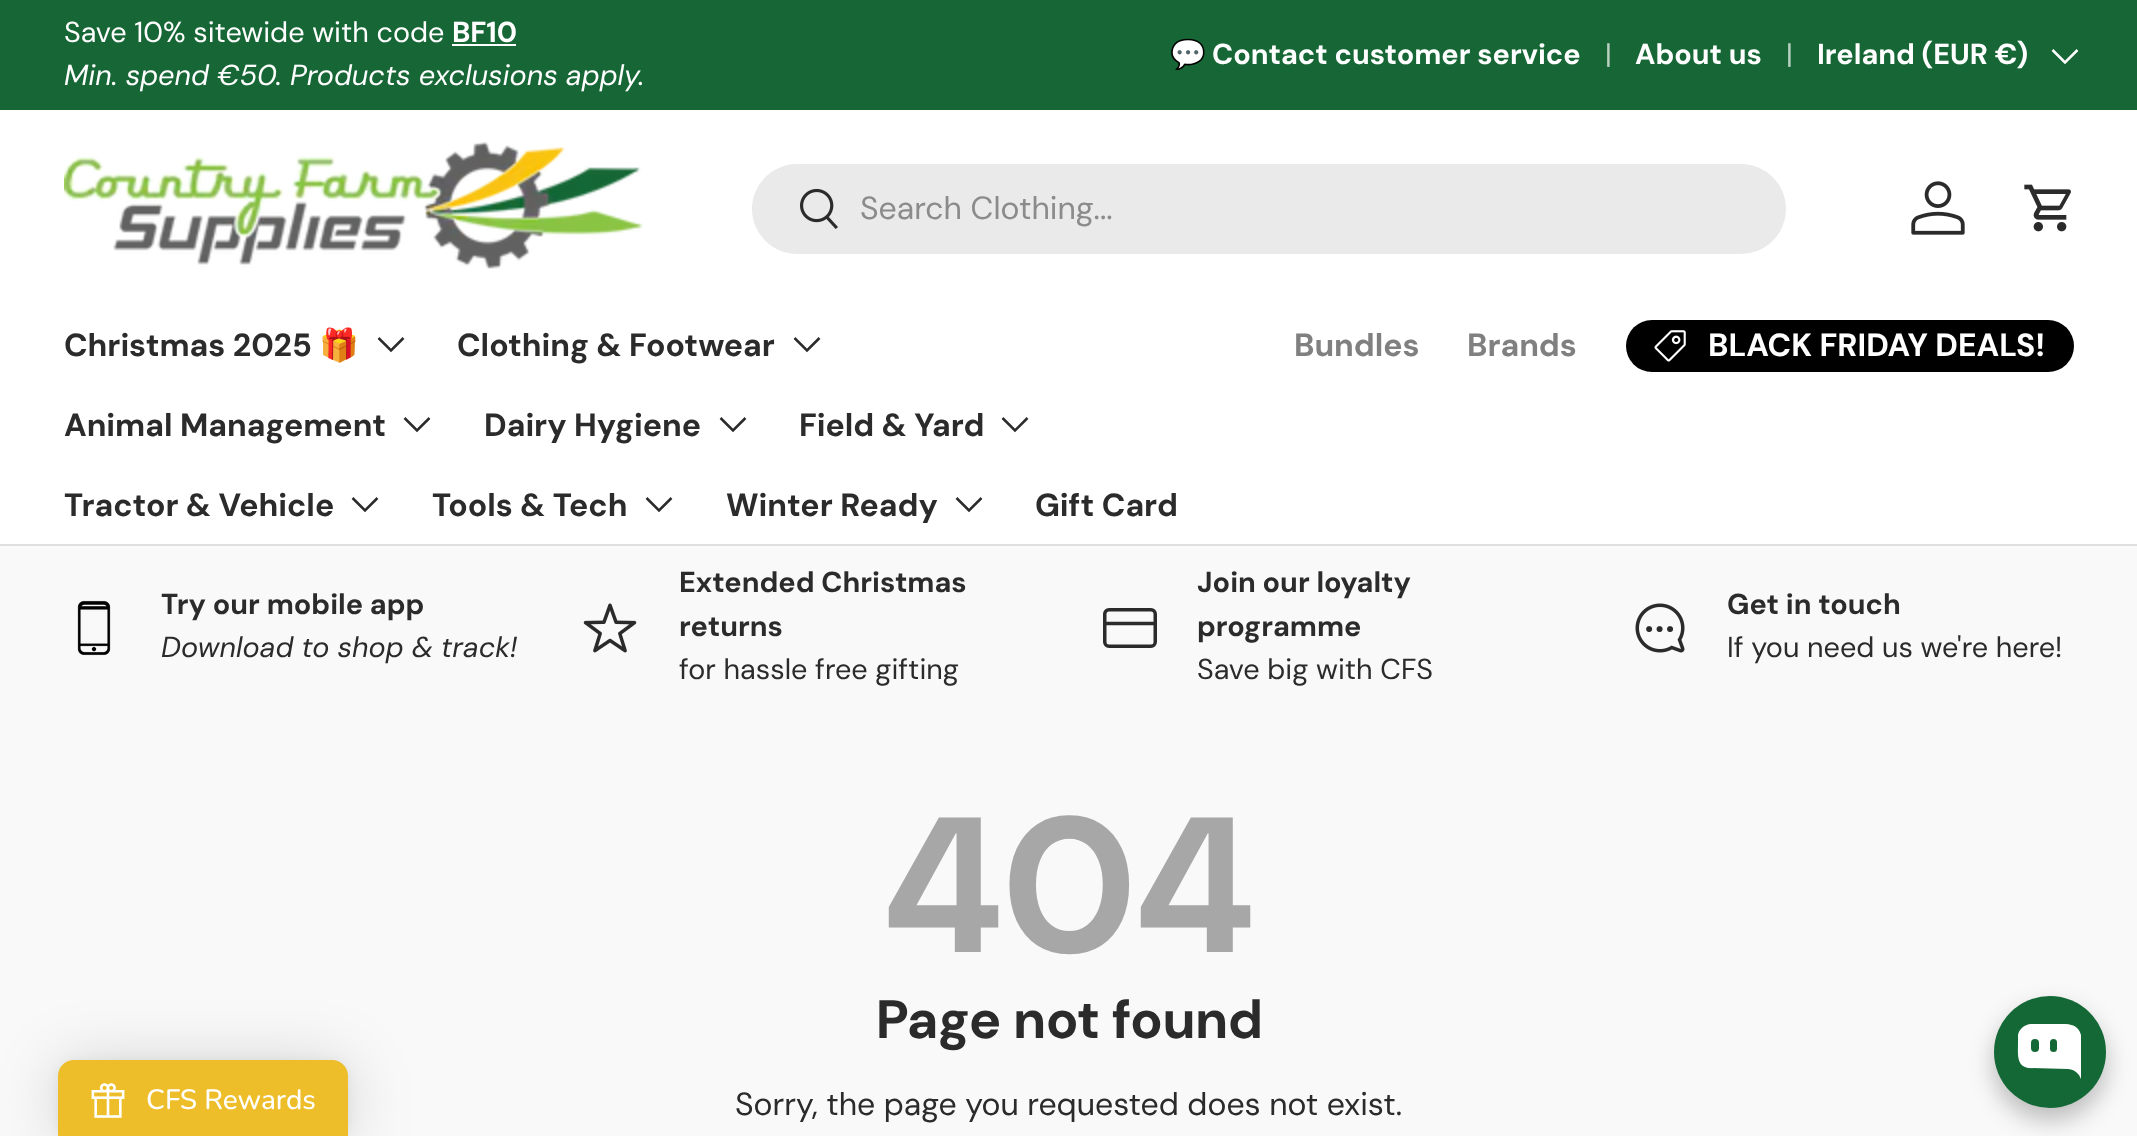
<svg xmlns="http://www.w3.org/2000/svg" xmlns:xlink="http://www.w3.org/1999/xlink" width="2137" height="1136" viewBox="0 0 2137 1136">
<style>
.cls-1{font:28.8px 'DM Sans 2';fill:#ffffff}
.cls-2{font:bold 28.8px 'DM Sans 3';fill:#ffffff}
.cls-3{font:italic 28.8px DM Sans;fill:#ffffff}
.cls-4{font:bold 28.8px Noto Color Emoji;fill:#ffffff}
.cls-5{font:28.8px 'DM Sans 2';fill:#b9d1c3}
.cls-6{font:32px DM Sans;fill:#8a8b8a}
.cls-7{font:bold 32px 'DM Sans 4';fill:#2a2b2a}
.cls-8{font:bold 32px Noto Color Emoji;fill:#2a2b2a}
.cls-9{font:bold 32px 'DM Sans 4';fill:#7f807f}
.cls-10{font:bold 32px 'DM Sans 4';fill:#ffffff}
.cls-11{font:bold 28.8px 'DM Sans 3';fill:#2a2b2a}
.cls-12{font:italic 28.8px DM Sans;fill:#2a2b2a}
.cls-13{font:28.8px 'DM Sans 2';fill:#2a2b2a}
.cls-14{font:500 28px Nunito;fill:#ffffff}
.cls-15{font:bold 192px DM Sans;fill:#a6a7a6}
.cls-16{font:bold 54px 'DM Sans 2';fill:#2a2b2a}
.cls-17{font:32px DM Sans;fill:#2a2b2a}
</style>
<defs>
<linearGradient id="g1" gradientUnits="userSpaceOnUse" x1="763" y1="187" x2="2041" y2="505"><stop offset="0.6" stop-color="#2e2e2e"/><stop offset="0.6" stop-color="#000000"/><stop offset="1" stop-color="#000000"/></linearGradient>
</defs>
<rect width="100%" height="100%" fill="#f9f9f9"/>
<rect fill="#176736" x="0" y="0" width="2137" height="110"/>
<rect fill="#ffffff" x="452" y="44" width="64" height="2"/>
<path fill="none" stroke="#ffffff" stroke-width="2.5" d="M2077.5 50L2065 62.5L2052.5 50"/>
<rect fill="#ffffff" x="0" y="110" width="2137" height="434"/>
<rect fill="#dfdfdf" x="0" y="544" width="2137" height="2"/>
<image xlink:href="image0.png" x="64" y="142" width="579" height="127"/>
<rect fill="#eaeaea" x="752" y="164" width="1034" height="90" rx="45"/>
<image xlink:href="image1.png" x="800" y="188" width="38" height="41"/>
<image xlink:href="image2.png" x="1911" y="181" width="54" height="54"/>
<image xlink:href="image3.png" x="2024" y="184" width="47" height="48"/>
<path fill="none" stroke="#2a2b2a" stroke-width="2.5" d="M403.5 338L391 350.5L378.5 338"/>
<path fill="none" stroke="#2a2b2a" stroke-width="2.5" d="M819.5 338L807 350.5L794.5 338"/>
<path fill="none" stroke="#2a2b2a" stroke-width="2.5" d="M429.5 418L417 430.5L404.5 418"/>
<path fill="none" stroke="#2a2b2a" stroke-width="2.5" d="M745.5 418L733 430.5L720.5 418"/>
<path fill="none" stroke="#2a2b2a" stroke-width="2.5" d="M1027.5 418L1015 430.5L1002.5 418"/>
<path fill="none" stroke="#2a2b2a" stroke-width="2.5" d="M377.5 498L365 510.5L352.5 498"/>
<path fill="none" stroke="#2a2b2a" stroke-width="2.5" d="M671.5 498L659 510.5L646.5 498"/>
<path fill="none" stroke="#2a2b2a" stroke-width="2.5" d="M981.5 498L969 510.5L956.5 498"/>
<rect fill="url(#g1)" x="1626" y="320" width="448" height="52" rx="26"/>
<image xlink:href="image4.png" x="1654" y="330" width="32" height="32"/>
<image xlink:href="image5.png" x="77" y="600" width="34" height="56"/>
<image xlink:href="image6.png" x="583" y="603" width="54" height="50"/>
<rect fill="none" stroke="#2a2b2a" stroke-width="3.5" x="1104.75" y="609.75" width="50.5" height="36.5" rx="4.25"/>
<path fill="none" stroke="#2a2b2a" stroke-width="3.5" d="M1105 623.5H1155"/>
<image xlink:href="image7.png" x="1635" y="603" width="50" height="50"/>
<rect fill="#000000" fill-opacity="0.16" filter="blur(32px)" x="58" y="1064" width="290" height="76" rx="16"/>
<rect fill="#000000" fill-opacity="0.06" filter="blur(6px)" x="58" y="1062" width="290" height="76" rx="16"/>
<path fill="#eebd2a" d="M74 1060H332C341 1060 348 1067 348 1076V1136H58V1076C58 1067 65 1060 74 1060Z"/>
<image xlink:href="image8.png" x="91" y="1083" width="34" height="35"/>
<rect fill="#000000" fill-opacity="0.25" filter="blur(12px)" x="1994" y="1008" width="112" height="112" rx="56"/>
<circle fill="#136835" cx="2050" cy="1052" r="56"/>
<path fill="#ffffff" fill-rule="evenodd" d="M2031 1024C2025 1024 2019 1029 2018 1035V1043C2018 1053 2016 1066 2028 1068L2068 1069C2072 1069 2076 1071 2079 1075L2081 1079V1035C2078 1022 2065 1024 2056 1024Z"/>
<rect fill="#136835" x="2031" y="1039" width="8" height="13" rx="4"/>
<rect fill="#136835" x="2050" y="1039" width="7" height="13" rx="3.5"/>
<text class="cls-1" x="64" y="42">Save 10% sitewide with code</text>
<text class="cls-2" x="452" y="42">BF10</text>
<text class="cls-3" x="64" y="85">Min. spend €50. Products exclusions apply.</text>
<text class="cls-4" x="1170" y="64">💬</text>
<text class="cls-2" x="1212" y="64">Contact customer service</text>
<text class="cls-5" x="1605" y="64">|</text>
<text class="cls-2" x="1635" y="64">About us</text>
<text class="cls-5" x="1786" y="64">|</text>
<text class="cls-2" x="1817" y="64">Ireland (EUR €)</text>
<text class="cls-6" x="860" y="219">Search Clothing...</text>
<text class="cls-7" x="64" y="356">Christmas 2025</text>
<text class="cls-8" x="319" y="356">🎁</text>
<text class="cls-7" x="457" y="356">Clothing &amp; Footwear</text>
<text class="cls-7" x="64" y="436">Animal Management</text>
<text class="cls-7" x="484" y="436">Dairy Hygiene</text>
<text class="cls-7" x="799" y="436">Field &amp; Yard</text>
<text class="cls-7" x="64" y="516">Tractor &amp; Vehicle</text>
<text class="cls-7" x="432" y="516">Tools &amp; Tech</text>
<text class="cls-7" x="726" y="516">Winter Ready</text>
<text class="cls-7" x="1035" y="516">Gift Card</text>
<text class="cls-9" x="1294" y="356">Bundles</text>
<text class="cls-9" x="1467" y="356">Brands</text>
<text class="cls-10" x="1708" y="356">BLACK FRIDAY DEALS!</text>
<text class="cls-11" x="161" y="614">Try our mobile app</text>
<text class="cls-12" x="161" y="657">Download to shop &amp; track!</text>
<text class="cls-11"><tspan x="679" y="592">Extended Christmas</tspan><tspan x="679" y="636">returns</tspan></text>
<text class="cls-13" x="679" y="679">for hassle free gifting</text>
<text class="cls-11"><tspan x="1197" y="592">Join our loyalty</tspan><tspan x="1197" y="636">programme</tspan></text>
<text class="cls-13" x="1197" y="679">Save big with CFS</text>
<text class="cls-11" x="1727" y="614">Get in touch</text>
<text class="cls-13" x="1727" y="657">If you need us we're here!</text>
<text class="cls-14" x="146" y="1109">CFS Rewards</text>
<text class="cls-15" x="884" y="952">404</text>
<text class="cls-16" x="876" y="1038">Page not found</text>
<text class="cls-17" x="735" y="1115">Sorry, the page you requested does not exist.</text>
</svg>
